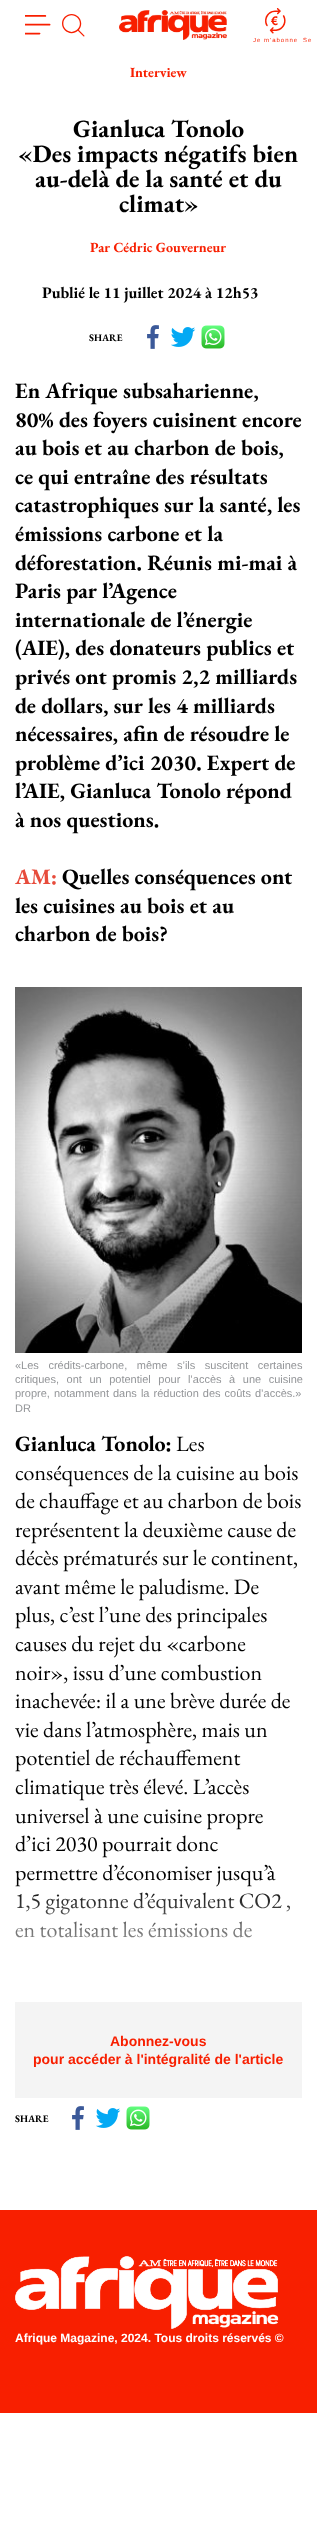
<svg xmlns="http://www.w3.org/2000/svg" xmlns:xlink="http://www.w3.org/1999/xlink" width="317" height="2522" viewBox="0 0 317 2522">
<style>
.cls-1{font:6px Liberation Sans;letter-spacing:1px;fill:#f81f00}
.cls-2{font:bold 14px EB Garamond;fill:#f81f00}
.cls-3{font:bold 25px EB Garamond;fill:#000000}
.cls-4{font:bold 16px EB Garamond;fill:#000000}
.cls-5{font:bold 10px EB Garamond;fill:#000000}
.cls-6{font:bold 22px EB Garamond;fill:#000000}
.cls-7{font:bold 22px EB Garamond;fill:#e74c3c}
.cls-8{font:11px Liberation Sans;fill:#939598}
.cls-9{font:22px EB Garamond;fill:#000000}
.cls-10{font:bold 14px Liberation Sans;fill:#f81f00}
.cls-11{font:bold 12px Liberation Sans;fill:#ffffff}
</style>
<defs>
<linearGradient id="g1" gradientUnits="userSpaceOnUse" x1="159" y1="2002" x2="159" y2="1882"><stop offset="0.1" stop-color="#ffffff"/><stop offset="1" stop-color="#ffffff" stop-opacity="0"/></linearGradient>
</defs>
<rect width="100%" height="100%" fill="#ffffff"/>
<image xlink:href="image0.png" x="25" y="15" width="26" height="20"/>
<image xlink:href="image1.png" x="62" y="14" width="23" height="23"/>
<image xlink:href="image2.png" x="119" y="10" width="108" height="30"/>
<image xlink:href="image3.png" x="265" y="8" width="21" height="26"/>
<image xlink:href="image4.png" x="147" y="325" width="12" height="24"/>
<image xlink:href="image5.png" x="171" y="327" width="25" height="20"/>
<image xlink:href="image6.png" x="201" y="325" width="24" height="24"/>
<image xlink:href="image7.png" x="15" y="987" width="287" height="366"/>
<rect fill="#f4f4f4" x="15" y="2002" width="287" height="96"/>
<image xlink:href="image4.png" x="72" y="2106" width="12" height="24"/>
<image xlink:href="image5.png" x="96" y="2108" width="25" height="20"/>
<image xlink:href="image6.png" x="126" y="2106" width="24" height="24"/>
<rect fill="#f81f00" x="0" y="2210" width="317" height="203"/>
<image xlink:href="image8.png" x="15" y="2256" width="264" height="73"/>
<text class="cls-1" x="253" y="42">Je m'abonne</text>
<text class="cls-1" x="303" y="42">Se</text>
<text class="cls-2" x="130" y="77">Interview</text>
<text class="cls-3" x="73" y="137">Gianluca Tonolo</text>
<text class="cls-3" x="18" y="162">«Des impacts négatifs bien</text>
<text class="cls-3" x="35" y="187">au-delà de la santé et du</text>
<text class="cls-3" x="119" y="212">climat»</text>
<text class="cls-2" x="90" y="252">Par Cédric Gouverneur</text>
<text class="cls-4" x="42" y="298">Publié le 11 juillet 2024 à 12h53</text>
<text class="cls-5" x="89" y="341">SHARE</text>
<text class="cls-6"><tspan x="15" y="398">En Afrique subsaharienne,</tspan><tspan x="15" y="427">80% des foyers cuisinent encore</tspan><tspan x="15" y="455">au bois et au charbon de bois,</tspan><tspan x="15" y="484">ce qui entraîne des résultats</tspan><tspan x="15" y="512">catastrophiques sur la santé, les</tspan><tspan x="15" y="541">émissions carbone et la</tspan><tspan x="15" y="570">déforestation. Réunis mi-mai à</tspan><tspan x="15" y="598">Paris par l’Agence</tspan><tspan x="15" y="627">internationale de l’énergie</tspan><tspan x="15" y="655">(AIE), des donateurs publics et</tspan><tspan x="15" y="684">privés ont promis 2,2 milliards</tspan><tspan x="15" y="713">de dollars, sur les 4 milliards</tspan><tspan x="15" y="741">nécessaires, afin de résoudre le</tspan><tspan x="15" y="770">problème d’ici 2030. Expert de</tspan><tspan x="15" y="798">l’AIE, Gianluca Tonolo répond</tspan><tspan x="15" y="827">à nos questions.</tspan></text>
<text class="cls-7" x="15" y="884">AM:</text>
<text class="cls-6" x="62" y="884">Quelles conséquences ont</text>
<text class="cls-6"><tspan x="15" y="913">les cuisines au bois et au</tspan><tspan x="15" y="941">charbon de bois?</tspan></text>
<text class="cls-8"><tspan x="15" y="1369" word-spacing="6.5">«Les crédits-carbone, même s’ils suscitent certaines</tspan><tspan x="15" y="1383" word-spacing="4.5">critiques, ont un potentiel pour l’accès à une cuisine</tspan><tspan x="15" y="1397" word-spacing="1">propre, notamment dans la réduction des coûts d’accès.»</tspan><tspan x="15" y="1412">DR</tspan></text>
<text class="cls-6" x="15" y="1451">Gianluca Tonolo:</text>
<text class="cls-9" x="176" y="1451">Les</text>
<text class="cls-9"><tspan x="15" y="1480">conséquences de la cuisine au bois</tspan><tspan x="15" y="1508">de chauffage et au charbon de bois</tspan><tspan x="15" y="1537">représentent la deuxième cause de</tspan><tspan x="15" y="1565">décès prématurés sur le continent,</tspan><tspan x="15" y="1594">avant même le paludisme. De</tspan><tspan x="15" y="1622">plus, c’est l’une des principales</tspan><tspan x="15" y="1651">causes du rejet du «carbone</tspan><tspan x="15" y="1680">noir», issu d’une combustion</tspan><tspan x="15" y="1708">inachevée: il a une brève durée de</tspan><tspan x="15" y="1737">vie dans l’atmosphère, mais un</tspan><tspan x="15" y="1765">potentiel de réchauffement</tspan><tspan x="15" y="1794">climatique très élevé. L’accès</tspan><tspan x="15" y="1823">universel à une cuisine propre</tspan><tspan x="15" y="1851">d’ici 2030 pourrait donc</tspan><tspan x="15" y="1880">permettre d’économiser jusqu’à</tspan><tspan x="15" y="1908">1,5 gigatonne d’équivalent CO2 ,</tspan><tspan x="15" y="1937">en totalisant les émissions de</tspan></text>
<rect fill="url(#g1)" x="15" y="1884" width="276" height="54"/>
<text class="cls-10" x="110" y="2046">Abonnez-vous</text>
<text class="cls-10" x="33" y="2064">pour accéder à l'intégralité de l'article</text>
<text class="cls-5" x="15" y="2122">SHARE</text>
<text class="cls-11" x="15" y="2342">Afrique Magazine, 2024. Tous droits réservés ©</text>
</svg>
